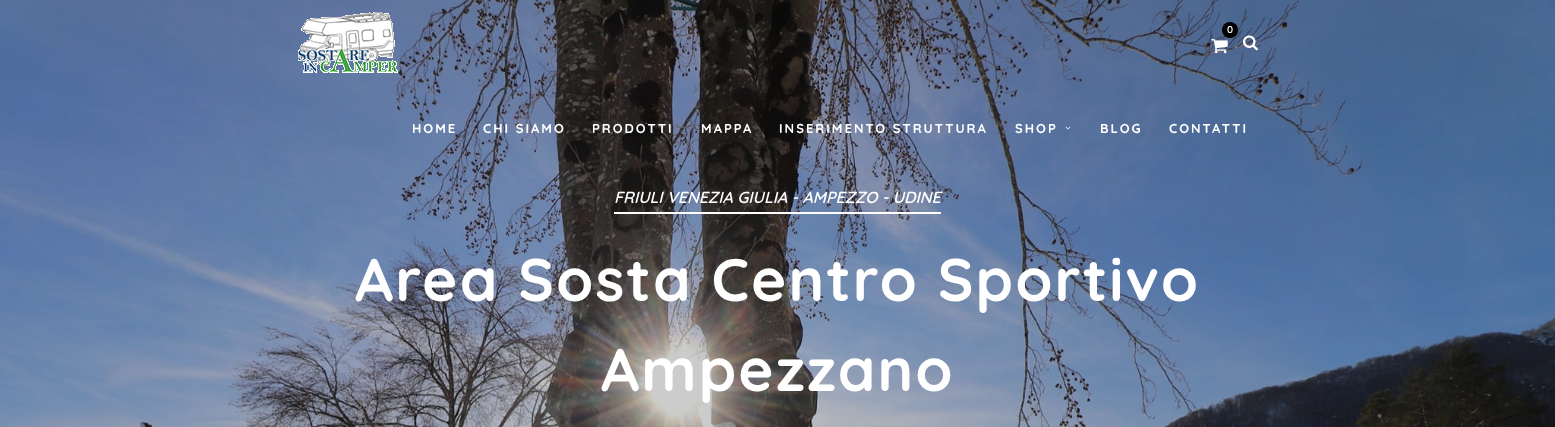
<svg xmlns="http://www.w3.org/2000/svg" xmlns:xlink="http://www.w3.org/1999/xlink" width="1555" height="427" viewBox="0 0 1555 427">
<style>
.cls-1{font:600 10px Quicksand;fill:#ffffff}
.cls-2{font:bold 13px Quicksand;letter-spacing:2px;fill:#ffffff}
.cls-3{font:italic 600 16px Quicksand;fill:#ffffff}
.cls-4{font:bold 60px Quicksand;letter-spacing:2px;fill:#ffffff}
</style>
<rect width="100%" height="100%" fill="#ffffff"/>
<image xlink:href="image0.png" x="0" y="0" width="1555" height="427"/>
<image xlink:href="image1.png" x="298" y="12" width="100" height="61"/>
<circle fill="#000000" cx="1230" cy="30" r="8"/>
<image xlink:href="image2.png" x="1211" y="39" width="17" height="15"/>
<image xlink:href="image3.png" x="1243" y="35" width="15" height="16"/>
<image xlink:href="image4.png" x="1065" y="126" width="6" height="4"/>
<rect fill="#ffffff" x="614" y="212" width="327" height="2"/>
<text class="cls-1" x="1227" y="33">0</text>
<text class="cls-2" x="412" y="133">HOME</text>
<text class="cls-2" x="483" y="133">CHI SIAMO</text>
<text class="cls-2" x="592" y="133">PRODOTTI</text>
<text class="cls-2" x="701" y="133">MAPPA</text>
<text class="cls-2" x="779" y="133">INSERIMENTO STRUTTURA</text>
<text class="cls-2" x="1015" y="133">SHOP</text>
<text class="cls-2" x="1100" y="133">BLOG</text>
<text class="cls-2" x="1169" y="133">CONTATTI</text>
<text class="cls-3" x="614" y="203">FRIULI VENEZIA GIULIA - AMPEZZO - UDINE</text>
<text class="cls-4" x="355" y="301">Area Sosta Centro Sportivo</text>
<text class="cls-4" x="601" y="391">Ampezzano</text>
</svg>
